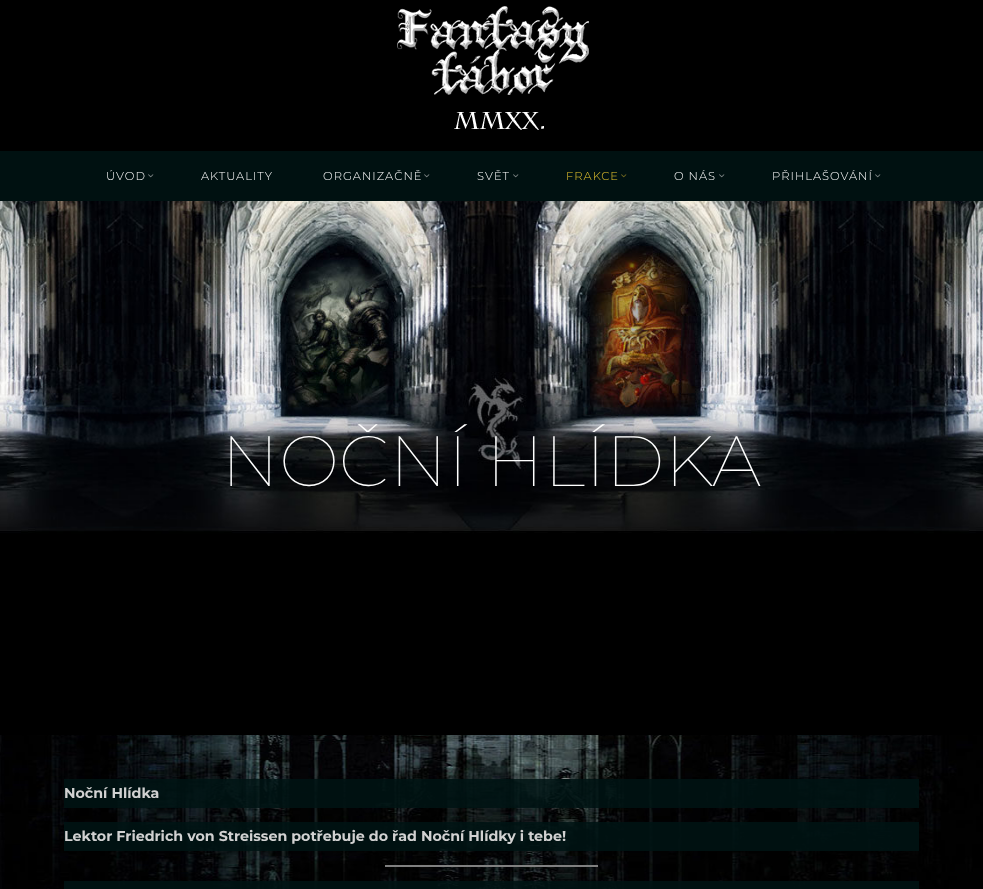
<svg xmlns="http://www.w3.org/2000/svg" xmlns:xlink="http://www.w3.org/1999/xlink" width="983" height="889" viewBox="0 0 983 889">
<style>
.cls-1{font:300 11.5px Montserrat;letter-spacing:1px;fill:#ffffff}
.cls-2{font:300 11.5px Montserrat;letter-spacing:1px;fill:#e8c62e}
.cls-3{font:100 71.25px Montserrat;fill:#ffffff}
.cls-4{font:bold 14.25px Montserrat;fill:#d1d1d1}
</style>
<rect width="100%" height="100%" fill="#000000"/>
<image xlink:href="image0.png" x="0" y="735" width="983" height="154"/>
<image xlink:href="image1.png" x="397" y="6" width="192" height="124"/>
<rect fill="#001111" x="0" y="151" width="983" height="50"/>
<image xlink:href="image2.png" x="148" y="174" width="6" height="4"/>
<image xlink:href="image2.png" x="424" y="174" width="6" height="4"/>
<image xlink:href="image2.png" x="513" y="174" width="6" height="4"/>
<image xlink:href="image3.png" x="621" y="174" width="6" height="4"/>
<image xlink:href="image2.png" x="719" y="174" width="6" height="4"/>
<image xlink:href="image2.png" x="875" y="174" width="6" height="4"/>
<image xlink:href="image4.png" x="0" y="201" width="983" height="534"/>
<rect fill="#001414" fill-opacity="0.85" x="64" y="779" width="855" height="29"/>
<rect fill="#001414" fill-opacity="0.85" x="64" y="822" width="855" height="29"/>
<rect fill="#808080" x="385" y="865" width="213" height="2"/>
<rect fill="#001414" fill-opacity="0.85" x="64" y="881" width="855" height="8"/>
<text class="cls-1" x="106" y="180">ÚVOD</text>
<text class="cls-1" x="201" y="180">AKTUALITY</text>
<text class="cls-1" x="323" y="180">ORGANIZAČNĚ</text>
<text class="cls-1" x="477" y="180">SVĚT</text>
<text class="cls-2" x="566" y="180">FRAKCE</text>
<text class="cls-1" x="674" y="180">O NÁS</text>
<text class="cls-1" x="772" y="180">PŘIHLAŠOVÁNÍ</text>
<text class="cls-3" x="221" y="486">NOČNÍ HLÍDKA</text>
<text class="cls-4" x="64" y="798">Noční Hlídka</text>
<text class="cls-4" x="64" y="841">Lektor Friedrich von Streissen potřebuje do řad Noční Hlídky i tebe!</text>
</svg>
